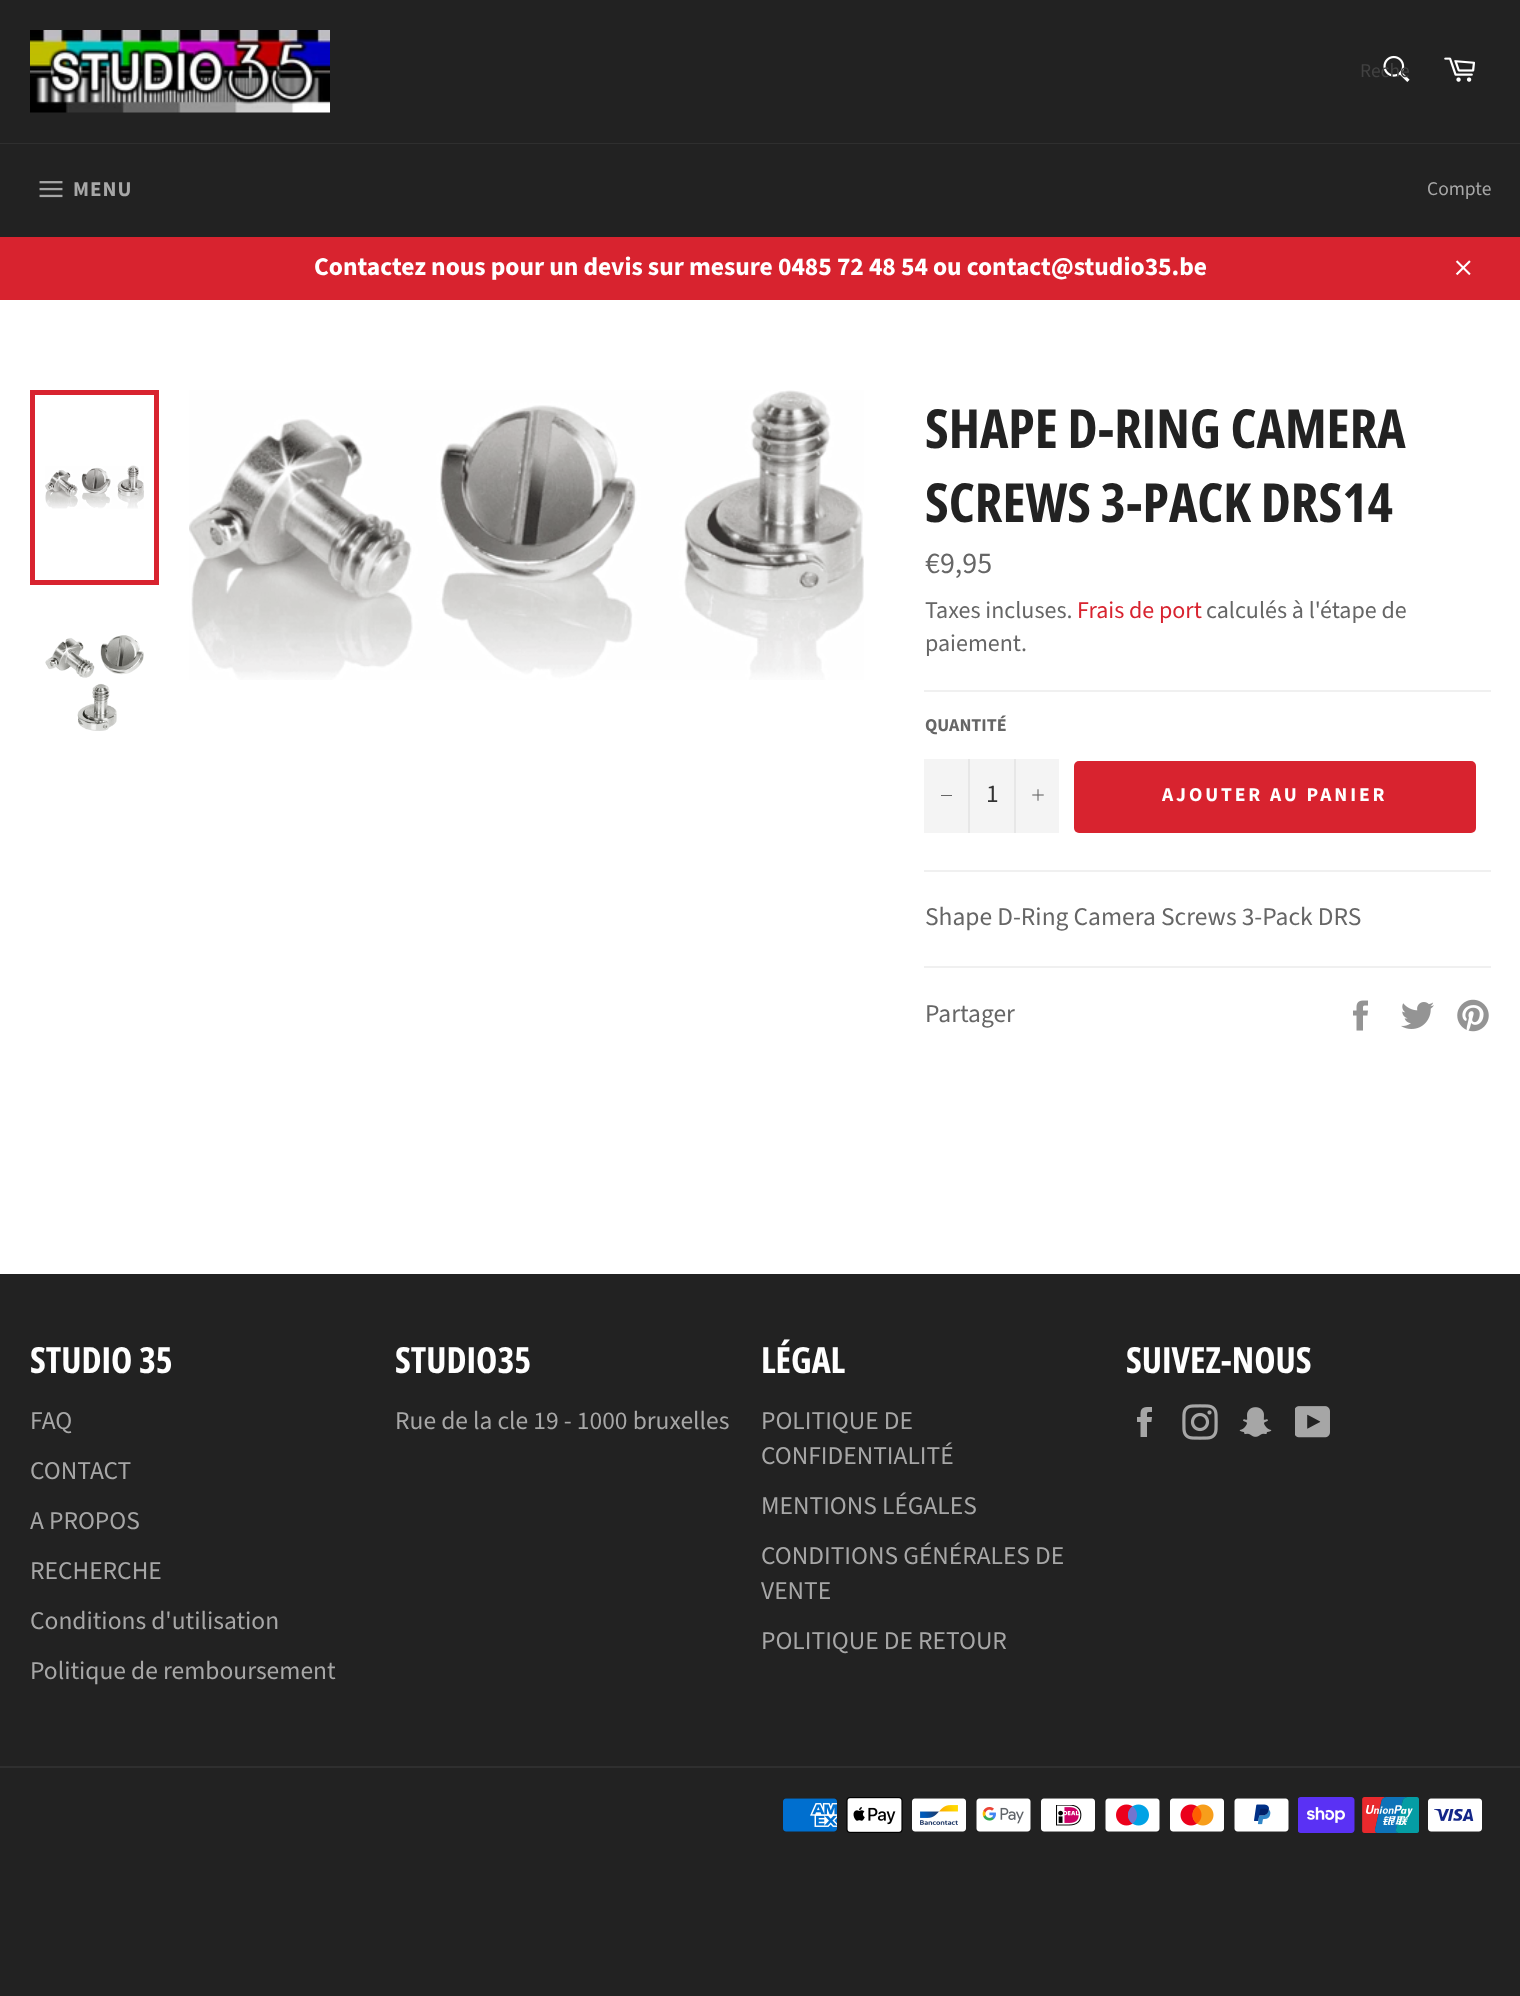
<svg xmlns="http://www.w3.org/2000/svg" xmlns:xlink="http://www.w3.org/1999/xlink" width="1520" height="1996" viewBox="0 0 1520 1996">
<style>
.cls-1{font:19.5px Source Sans Pro;fill:#414141}
.cls-2{font:bold 21px Source Sans Pro;letter-spacing:1px;fill:#a7a7a7}
.cls-3{font:19.5px Source Sans Pro;fill:#a7a7a7}
.cls-4{font:bold 25.5px Source Sans Pro;fill:#ffffff}
.cls-5{font:bold 54px Open Sans Condensed;fill:#222222}
.cls-6{font:30px Source Sans Pro;fill:#666666}
.cls-7{font:24px Source Sans Pro;fill:#666666}
.cls-8{font:24px Source Sans Pro;fill:#d8232f}
.cls-9{font:bold 18px Source Sans Pro;fill:#666666}
.cls-10{font:25.5px Source Sans Pro;fill:#333333}
.cls-11{font:bold 19.5px Source Sans Pro;letter-spacing:2.9px;fill:#ffffff}
.cls-12{font:25.5px Source Sans Pro;fill:#666666}
.cls-13{font:bold 36px Open Sans Condensed;fill:#ffffff}
.cls-14{font:25.5px Source Sans Pro;fill:#a7a7a7}
</style>
<defs>
<clipPath id="clip1"><rect x="1361" y="59" width="48" height="27"/></clipPath>
</defs>
<rect width="100%" height="100%" fill="#222222"/>
<image xlink:href="image0.png" x="30" y="30" width="300" height="83"/>
<image xlink:href="image1.png" x="1383" y="55" width="27" height="27"/>
<image xlink:href="image2.png" x="1444" y="57" width="31" height="25"/>
<rect fill="#2f2f2f" x="0" y="143" width="1520" height="1"/>
<image xlink:href="image3.png" x="39" y="181" width="24" height="17"/>
<rect fill="#d8232f" x="0" y="237" width="1520" height="63"/>
<image xlink:href="image4.png" x="1455" y="260" width="16" height="16"/>
<rect fill="#ffffff" x="0" y="300" width="1520" height="974"/>
<image xlink:href="image5.png" x="45" y="465" width="99" height="44"/>
<rect fill="none" stroke="#d8232f" stroke-width="5" x="32.5" y="392.5" width="124" height="190"/>
<image xlink:href="image6.png" x="45" y="635" width="99" height="96"/>
<image xlink:href="image7.png" x="189" y="390" width="675" height="290"/>
<rect fill="#f0f0f0" x="924" y="690" width="567" height="2"/>
<rect fill="#f4f4f4" x="924" y="759" width="135" height="74"/>
<rect fill="#e7e7e7" x="968" y="759" width="2" height="74"/>
<rect fill="#666666" x="941" y="795" width="11" height="1"/>
<rect fill="#e7e7e7" x="1014" y="759" width="2" height="74"/>
<image xlink:href="image8.png" x="1032" y="789" width="12" height="12"/>
<rect fill="#d8232f" x="1074" y="761" width="402" height="72" rx="5"/>
<rect fill="#f0f0f0" x="924" y="870" width="567" height="2"/>
<rect fill="#f0f0f0" x="924" y="966" width="567" height="2"/>
<image xlink:href="image9.png" x="1353" y="1000" width="15" height="31"/>
<image xlink:href="image10.png" x="1401" y="1002" width="33" height="27"/>
<image xlink:href="image11.png" x="1457" y="999" width="32" height="33"/>
<image xlink:href="image12.png" x="1137" y="1407" width="15" height="30"/>
<image xlink:href="image13.png" x="1182" y="1404" width="36" height="36"/>
<image xlink:href="image14.png" x="1239" y="1407" width="33" height="30"/>
<image xlink:href="image15.png" x="1295" y="1406" width="35" height="32"/>
<rect fill="#2f2f2f" x="0" y="1766" width="1520" height="2"/>
<image xlink:href="image16.png" x="783" y="1798" width="54" height="34"/>
<image xlink:href="image17.png" x="846" y="1797" width="57" height="36"/>
<image xlink:href="image18.png" x="912" y="1798" width="54" height="34"/>
<image xlink:href="image19.png" x="976" y="1798" width="55" height="34"/>
<image xlink:href="image20.png" x="1041" y="1798" width="54" height="34"/>
<image xlink:href="image21.png" x="1105" y="1798" width="55" height="34"/>
<image xlink:href="image22.png" x="1170" y="1798" width="54" height="34"/>
<image xlink:href="image23.png" x="1234" y="1798" width="55" height="34"/>
<image xlink:href="image24.png" x="1298" y="1797" width="57" height="36"/>
<image xlink:href="image25.png" x="1362" y="1797" width="57" height="36"/>
<image xlink:href="image26.png" x="1428" y="1798" width="54" height="34"/>
<g clip-path="url(#clip1)">
<text class="cls-1" x="1360" y="77">Reche</text>
</g>
<text class="cls-2" x="73" y="196">MENU</text>
<text class="cls-3" x="1427" y="195">Compte</text>
<text class="cls-4" x="314" y="275">Contactez nous pour un devis sur mesure 0485 72 48 54 ou contact@studio35.be</text>
<text class="cls-5"><tspan x="925" y="448">SHAPE D-RING CAMERA</tspan><tspan x="925" y="522">SCREWS 3-PACK DRS14</tspan></text>
<text class="cls-6" x="925" y="573">€9,95</text>
<text class="cls-7" x="925" y="618">Taxes incluses.</text>
<text class="cls-8" x="1077" y="618">Frais de port</text>
<text class="cls-7" x="1206" y="618">calculés à l'étape de</text>
<text class="cls-7" x="925" y="651">paiement.</text>
<text class="cls-9" x="925" y="731">QUANTITÉ</text>
<text class="cls-10" x="986" y="802">1</text>
<text class="cls-11" x="1162" y="801">AJOUTER AU PANIER</text>
<text class="cls-12" x="925" y="925">Shape D-Ring Camera Screws 3-Pack DRS</text>
<text class="cls-12" x="925" y="1022">Partager</text>
<text class="cls-13" x="30" y="1373">STUDIO 35</text>
<text class="cls-14"><tspan x="30" y="1429">FAQ</tspan><tspan x="30" y="1479">CONTACT</tspan><tspan x="30" y="1529">A PROPOS</tspan><tspan x="30" y="1579">RECHERCHE</tspan><tspan x="30" y="1629">Conditions d'utilisation</tspan><tspan x="30" y="1679">Politique de remboursement</tspan></text>
<text class="cls-13" x="395" y="1373">STUDIO35</text>
<text class="cls-14" x="395" y="1429">Rue de la cle 19 - 1000 bruxelles</text>
<text class="cls-13" x="761" y="1373">LÉGAL</text>
<text class="cls-14"><tspan x="761" y="1429">POLITIQUE DE</tspan><tspan x="761" y="1464">CONFIDENTIALITÉ</tspan><tspan x="761" y="1514">MENTIONS LÉGALES</tspan><tspan x="761" y="1564">CONDITIONS GÉNÉRALES DE</tspan><tspan x="761" y="1599">VENTE</tspan><tspan x="761" y="1649">POLITIQUE DE RETOUR</tspan></text>
<text class="cls-13" x="1126" y="1373">SUIVEZ-NOUS</text>
</svg>
